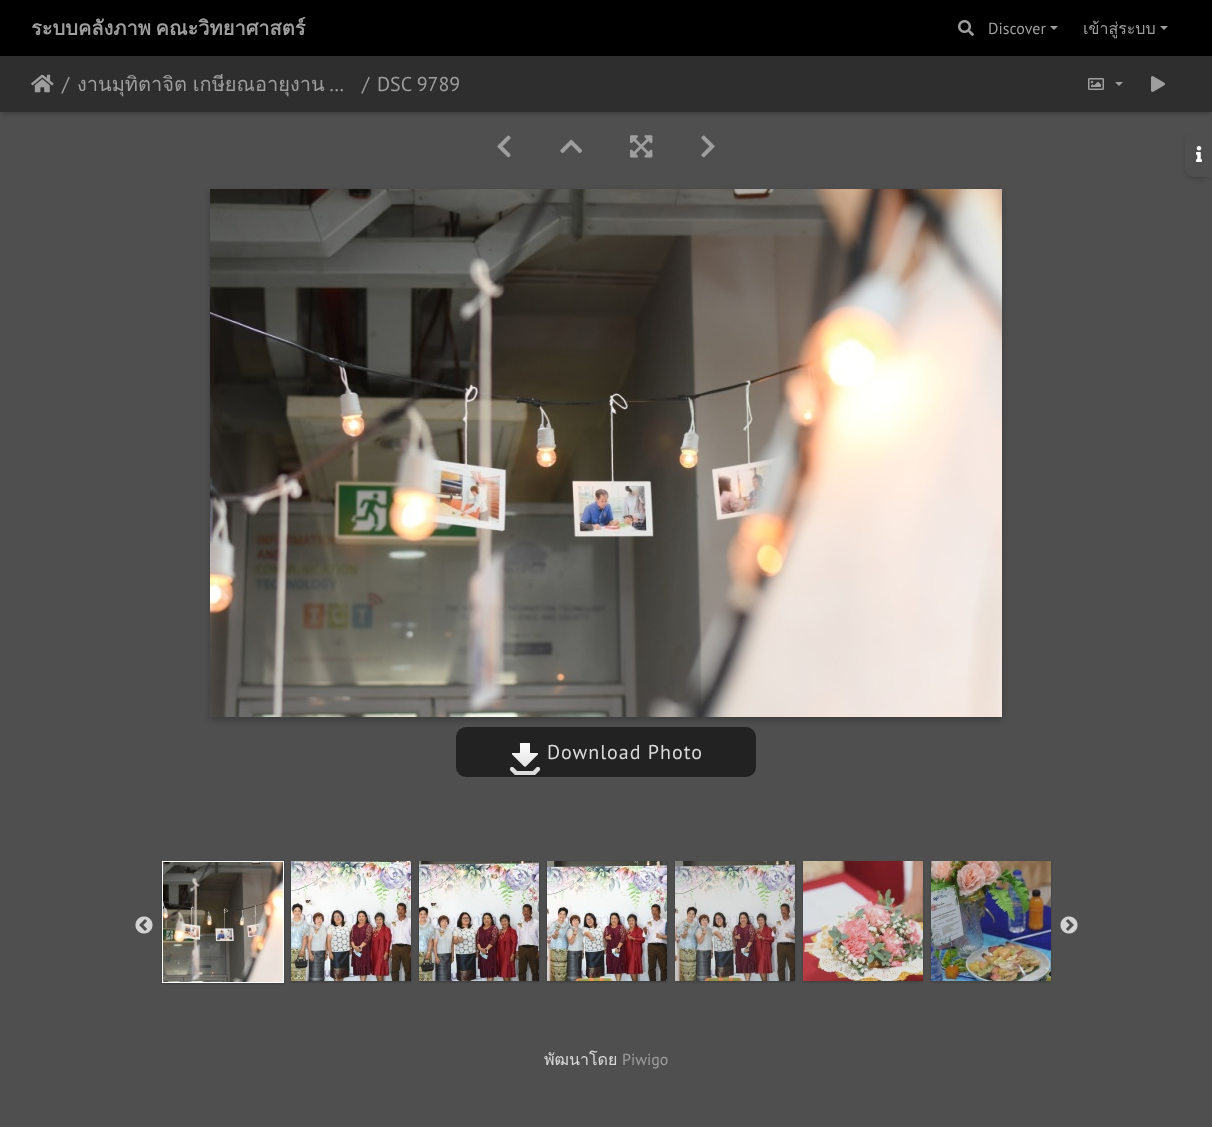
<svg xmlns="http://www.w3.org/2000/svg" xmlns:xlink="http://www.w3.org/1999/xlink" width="1212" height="1127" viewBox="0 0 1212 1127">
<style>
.cls-1{font:bold 20px Loma;fill:#9e9e9e}
.cls-2{font:16px PT Sans;fill:#9e9e9e}
.cls-3{font:16px Loma;fill:#9e9e9e}
.cls-4{font:20px PT Sans;fill:#9e9e9e}
.cls-5{font:20px Loma;fill:#9e9e9e}
.cls-6{font:20px PT Sans;letter-spacing:1px;fill:#dbdbdb}
.cls-7{font:16px Loma;fill:#dbdbdb}
</style>
<defs>
<clipPath id="clip1"><path d="M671 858H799V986H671ZM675 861H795V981H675Z" clip-rule="evenodd"/></clipPath>
<clipPath id="clip2"><path d="M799 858H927V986H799ZM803 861H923V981H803Z" clip-rule="evenodd"/></clipPath>
<clipPath id="clip3"><path d="M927 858H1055V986H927ZM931 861H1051V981H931Z" clip-rule="evenodd"/></clipPath>
</defs>
<rect width="100%" height="100%" fill="#4f4f4f"/>
<rect fill="#000000" fill-opacity="0.2" filter="blur(2.5px)" x="1" y="60" width="1210" height="54"/>
<rect fill="#000000" x="0" y="0" width="1212" height="56"/>
<image xlink:href="image0.png" x="958" y="20" width="16" height="16"/>
<path fill="#9e9e9e" d="M1050 26H1058L1054 30Z"/>
<path fill="#9e9e9e" d="M1160 26H1168L1164 30Z"/>
<rect fill="#2e2e2e" x="0" y="56" width="1212" height="56"/>
<image xlink:href="image1.png" x="31" y="74" width="23" height="19"/>
<image xlink:href="image2.png" x="1088" y="78" width="16" height="12"/>
<path fill="#9e9e9e" d="M1115 82H1123L1119 86Z"/>
<image xlink:href="image3.png" x="1151" y="76" width="14" height="16"/>
<image xlink:href="image4.png" x="497" y="135" width="14" height="23"/>
<image xlink:href="image5.png" x="560" y="139" width="22" height="14"/>
<image xlink:href="image6.png" x="630" y="135" width="23" height="23"/>
<image xlink:href="image7.png" x="701" y="135" width="14" height="23"/>
<rect fill="#000000" fill-opacity="0.2" filter="blur(2.5px)" x="1186" y="135" width="25" height="44" rx="9"/>
<path fill="#4f4f4f" d="M1195 131H1212V177H1195C1189.5 177 1185 172.5 1185 167V141C1185 135.5 1189.5 131 1195 131Z"/>
<path fill="#4f4f4f" fill-rule="evenodd" d="M1195 131H1212V177H1195C1189 177 1185 173 1185 167V141C1185 135 1189 131 1195 131ZM1195 132H1212V176H1195C1190 176 1186 172 1186 167V141C1186 136 1190 132 1195 132Z"/>
<image xlink:href="image8.png" x="1196" y="146" width="6" height="16"/>
<rect fill="#222222" x="456" y="727" width="300" height="50" rx="10"/>
<rect fill="#000000" fill-opacity="0.23" filter="blur(3px)" x="210" y="192" width="792" height="528"/>
<image xlink:href="image9.png" x="210" y="189" width="792" height="528"/>
<image xlink:href="image10.png" x="510" y="743" width="30" height="32"/>
<image xlink:href="image11.png" x="135" y="916" width="18" height="18"/>
<rect fill="#000000" fill-opacity="0.24" filter="blur(1px)" x="162" y="862" width="122" height="122"/>
<rect fill="none" stroke="#ffffff" x="162.5" y="861.5" width="121" height="121"/>
<image xlink:href="image12.png" x="163" y="862" width="120" height="120"/>
<rect fill="#000000" fill-opacity="0.24" filter="blur(1px)" x="291" y="862" width="120" height="120"/>
<image xlink:href="image13.png" x="291" y="861" width="120" height="120"/>
<rect fill="#000000" fill-opacity="0.24" filter="blur(1px)" x="419" y="862" width="120" height="120"/>
<image xlink:href="image14.png" x="419" y="861" width="120" height="120"/>
<rect fill="#000000" fill-opacity="0.24" filter="blur(1px)" x="547" y="862" width="120" height="120"/>
<image xlink:href="image15.png" x="547" y="861" width="120" height="120"/>
<g clip-path="url(#clip1)">
<rect fill="#0e0e0e" fill-opacity="0.24" filter="blur(1px)" x="675" y="862" width="120" height="120"/>
</g>
<image xlink:href="image16.png" x="675" y="861" width="120" height="120"/>
<g clip-path="url(#clip2)">
<rect fill="#0e0e0e" fill-opacity="0.24" filter="blur(1px)" x="803" y="862" width="120" height="120"/>
</g>
<image xlink:href="image17.png" x="803" y="861" width="120" height="120"/>
<g clip-path="url(#clip3)">
<rect fill="#0e0e0e" fill-opacity="0.24" filter="blur(1px)" x="931" y="862" width="120" height="120"/>
</g>
<image xlink:href="image18.png" x="931" y="861" width="120" height="120"/>
<image xlink:href="image19.png" x="1060" y="916" width="18" height="18"/>
<text class="cls-1" x="31" y="35" word-spacing="-2">ระบบคลังภาพ คณะวิทยาศาสตร์</text>
<text class="cls-2" x="988" y="34">Discover</text>
<text class="cls-3" x="1083" y="34">เข้าสู่ระบบ</text>
<text class="cls-4" x="62" y="91">/</text>
<text class="cls-5" x="77" y="91" word-spacing="-1">งานมุทิตาจิต เกษียณอายุงาน</text>
<text class="cls-4" x="329" y="91">…</text>
<text class="cls-4" x="362" y="91">/</text>
<text class="cls-4" x="377" y="91">DSC 9789</text>
<text class="cls-6" x="547" y="759">Download Photo</text>
<text class="cls-7" x="544" y="1065">พัฒนาโดย</text>
<text class="cls-2" x="622" y="1065">Piwigo</text>
</svg>
